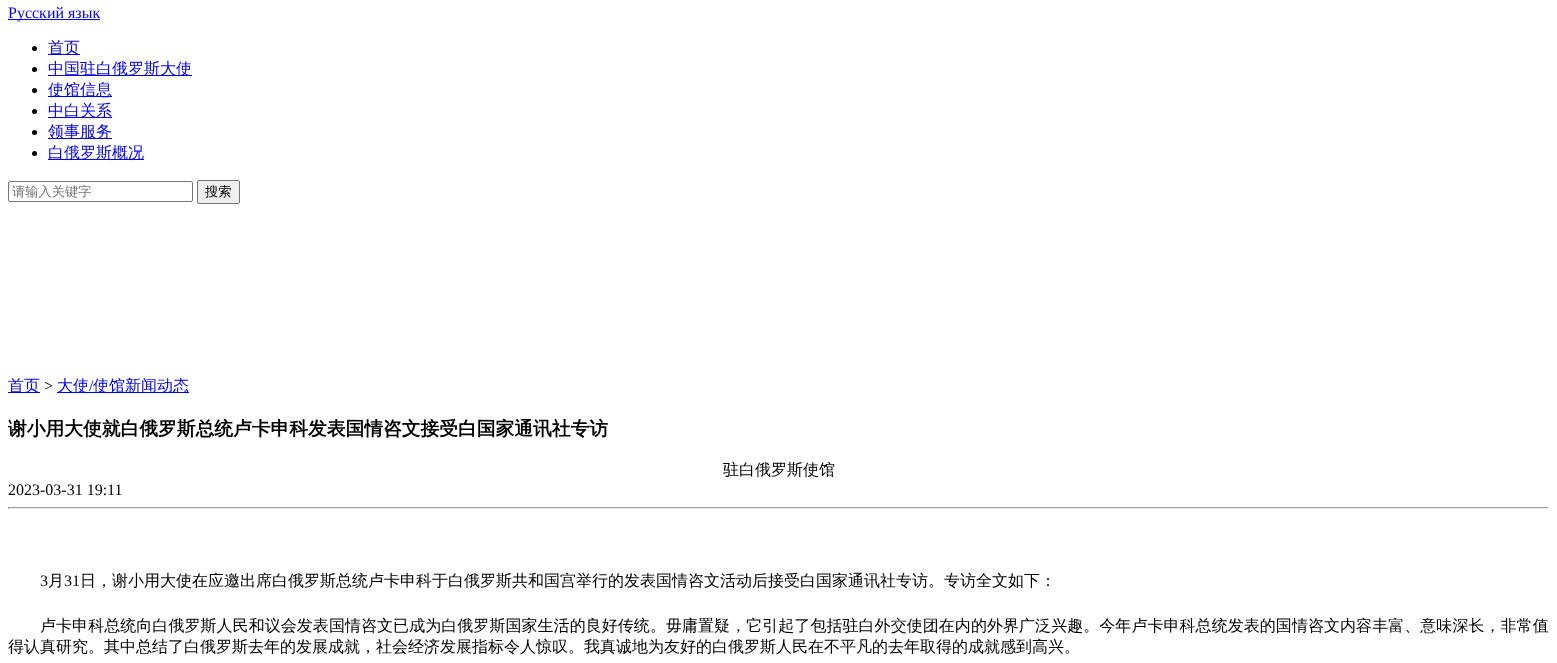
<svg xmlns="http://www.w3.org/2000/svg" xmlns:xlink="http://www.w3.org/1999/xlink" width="1557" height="663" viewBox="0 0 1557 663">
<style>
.cls-1{font:16px Liberation Serif;fill:#0000ee}
.cls-2{font:500 16px WenQuanYi Zen Hei;fill:#0000ee}
.cls-3{font:500 13.25px WenQuanYi Zen Hei;fill:#757575}
.cls-4{font:500 13.25px WenQuanYi Zen Hei;fill:#000000}
.cls-5{font:16px Liberation Serif;fill:#000000}
.cls-6{font:bold 18.75px WenQuanYi Zen Hei;fill:#000000}
.cls-7{font:500 16px WenQuanYi Zen Hei;fill:#000000}
.cls-8{font:500 16px WenQuanYi Zen Hei;letter-spacing:0.05px;fill:#000000}
</style>
<rect width="100%" height="100%" fill="#ffffff"/>
<rect fill="#0000ee" x="8" y="19" width="92" height="1"/>
<circle fill="#000000" cx="34.5" cy="48.5" r="2.5"/>
<rect fill="#0000ee" x="48" y="54" width="32" height="1"/>
<circle fill="#000000" cx="34.5" cy="69.5" r="2.5"/>
<rect fill="#0000ee" x="48" y="75" width="144" height="1"/>
<circle fill="#000000" cx="34.5" cy="90.5" r="2.5"/>
<rect fill="#0000ee" x="48" y="96" width="64" height="1"/>
<circle fill="#000000" cx="34.5" cy="111.5" r="2.5"/>
<rect fill="#0000ee" x="48" y="117" width="64" height="1"/>
<circle fill="#000000" cx="34.5" cy="132.5" r="2.5"/>
<rect fill="#0000ee" x="48" y="138" width="64" height="1"/>
<circle fill="#000000" cx="34.5" cy="153.5" r="2.5"/>
<rect fill="#0000ee" x="48" y="159" width="96" height="1"/>
<rect fill="none" stroke="#767676" x="8.5" y="181.5" width="184" height="20" rx="1.5"/>
<rect fill="#efefef" stroke="#767676" x="197.5" y="180.5" width="42" height="23" rx="1.5"/>
<rect fill="#0000ee" x="8" y="392" width="32" height="1"/>
<rect fill="#0000ee" x="57" y="392" width="132" height="1"/>
<rect fill="#9f9f9f" x="8" y="507" width="1541" height="1"/>
<rect fill="#eeeeee" x="1548" y="507" width="1" height="2"/>
<rect fill="#eeeeee" x="8" y="508" width="1541" height="1"/>
<rect fill="#9f9f9f" x="8" y="507" width="1" height="2"/>
<text class="cls-1" x="8" y="18">Русский язык</text>
<text class="cls-2"><tspan x="48" y="53">首页</tspan><tspan x="48" y="74">中国驻白俄罗斯大使</tspan><tspan x="48" y="95">使馆信息</tspan><tspan x="48" y="116">中白关系</tspan><tspan x="48" y="137">领事服务</tspan><tspan x="48" y="158">白俄罗斯概况</tspan></text>
<text class="cls-3" x="12" y="196">请输入关键字</text>
<text class="cls-4" x="205" y="196">搜索</text>
<text class="cls-2" x="8" y="391">首页</text>
<text class="cls-5" x="44" y="391">&gt;</text>
<text class="cls-2" x="57" y="391">大使</text>
<text class="cls-1" x="89" y="391">/</text>
<text class="cls-2" x="93" y="391">使馆新闻动态</text>
<text class="cls-6" x="8" y="435">谢小用大使就白俄罗斯总统卢卡申科发表国情咨文接受白国家通讯社专访</text>
<text class="cls-7" x="723" y="475">驻白俄罗斯使馆</text>
<text class="cls-5" x="8" y="495">2023-03-31 19:11</text>
<text class="cls-5" x="40" y="586">3</text>
<text class="cls-7" x="48" y="586">月</text>
<text class="cls-5" x="64" y="586">31</text>
<text class="cls-7" x="80" y="586">日，谢小用大使在应邀出席白俄罗斯总统卢卡申科于白俄罗斯共和国宫举行的发表国情咨文活动后接受白国家通讯社专访。专访全文如下：</text>
<text class="cls-8" x="40" y="631">卢卡申科总统向白俄罗斯人民和议会发表国情咨文已成为白俄罗斯国家生活的良好传统。毋庸置疑，它引起了包括驻白外交使团在内的外界广泛兴趣。今年卢卡申科总统发表的国情咨文内容丰富、意味深长，非常值</text>
<text class="cls-7" x="8" y="652">得认真研究。其中总结了白俄罗斯去年的发展成就，社会经济发展指标令人惊叹。我真诚地为友好的白俄罗斯人民在不平凡的去年取得的成就感到高兴。</text>
</svg>
